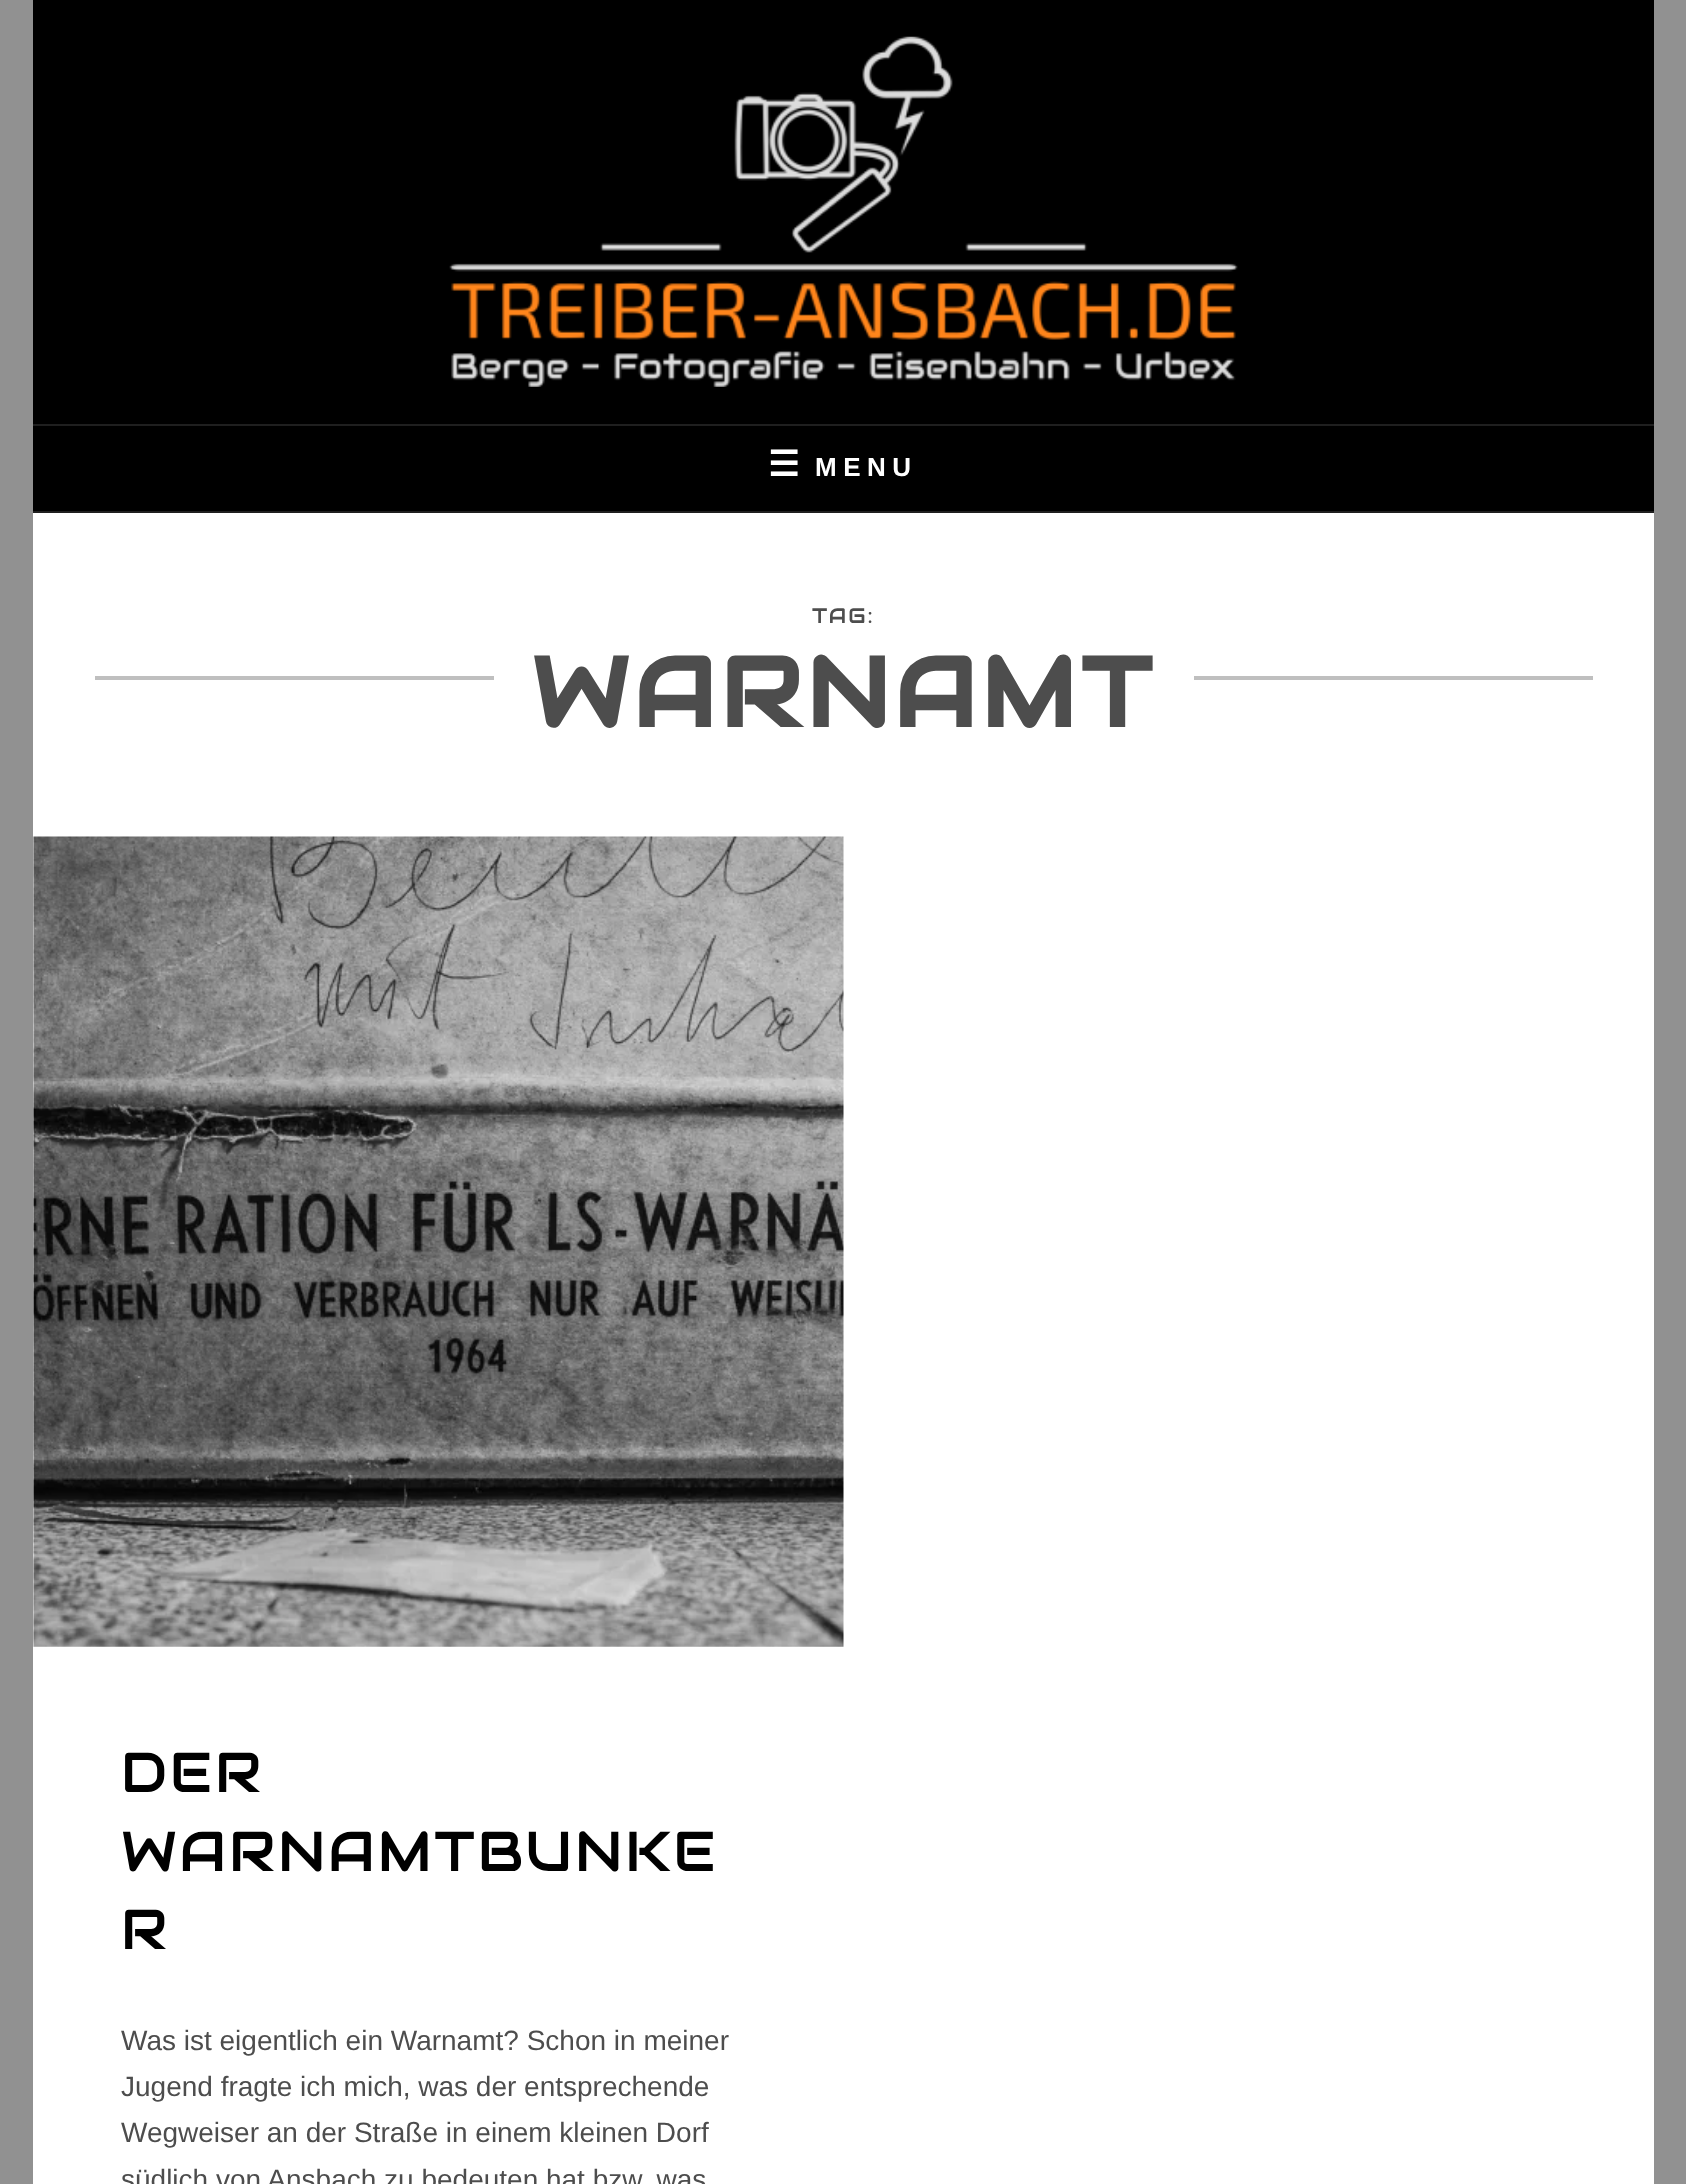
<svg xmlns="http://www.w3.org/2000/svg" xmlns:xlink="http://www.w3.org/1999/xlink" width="1686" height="2184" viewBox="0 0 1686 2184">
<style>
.cls-1{font:bold 35px DejaVu Sans;letter-spacing:6.5px;fill:#ffffff}
.cls-2{font:bold 26px Liberation Sans;letter-spacing:6.5px;fill:#ffffff}
.cls-3{font:21px Audiowide;letter-spacing:2px;fill:#4d4d4d}
.cls-4{font:bold 98px Audiowide;letter-spacing:5px;fill:#4d4d4d}
.cls-5{font:56px Audiowide;letter-spacing:2.75px;fill:#000000}
.cls-6{font:28px Liberation Sans;fill:#4d4d4d}
</style>
<rect width="100%" height="100%" fill="#919191"/>
<rect fill="#ffffff" x="33" y="513" width="1621" height="1671"/>
<rect fill="#000000" x="33" y="0" width="1621" height="511"/>
<image xlink:href="image0.png" x="449" y="36" width="789" height="351"/>
<rect fill="#1f1f1f" x="33" y="424" width="1621" height="2"/>
<rect fill="#1f1f1f" x="33" y="511" width="1621" height="2"/>
<rect fill="#bfbfbf" x="95" y="676" width="1498" height="4"/>
<rect fill="#ffffff" x="494" y="676" width="700" height="4"/>
<image xlink:href="image1.png" x="33" y="836" width="811" height="811"/>
<text class="cls-1" x="768" y="476">☰</text>
<text class="cls-2" x="815" y="476">MENU</text>
<text class="cls-3" x="812" y="623">TAG:</text>
<text class="cls-4" x="531" y="727">WARNAMT</text>
<text class="cls-5"><tspan x="121" y="1792">DER</tspan><tspan x="121" y="1871">WARNAMTBUNKE</tspan><tspan x="121" y="1949">R</tspan></text>
<text class="cls-6"><tspan x="121" y="2050">Was ist eigentlich ein Warnamt? Schon in meiner</tspan><tspan x="121" y="2096">Jugend fragte ich mich, was der entsprechende</tspan><tspan x="121" y="2142">Wegweiser an der Straße in einem kleinen Dorf</tspan><tspan x="121" y="2189">südlich von Ansbach zu bedeuten hat bzw. was</tspan></text>
</svg>
